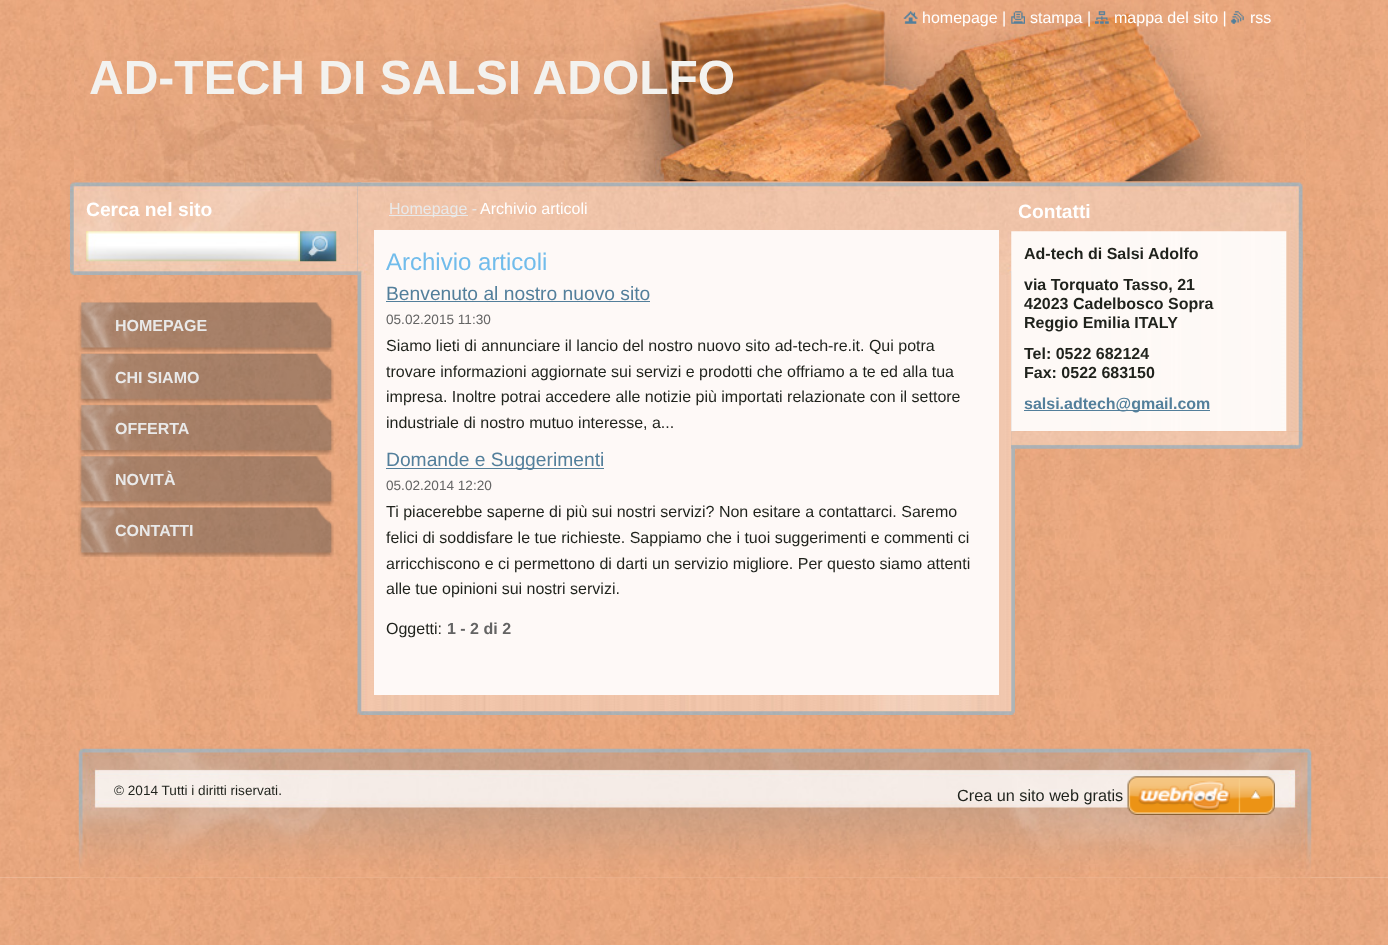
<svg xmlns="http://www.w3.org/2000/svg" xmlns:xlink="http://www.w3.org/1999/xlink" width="1388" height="945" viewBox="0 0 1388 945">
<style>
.cls-1{font:16px Liberation Sans;fill:#ffffff}
.cls-2{font:bold 48px Liberation Sans;fill:#f3f2ef}
.cls-3{font:bold 19.25px Liberation Sans;fill:#ffffff}
.cls-4{font:16px Liberation Sans;fill:#e9e9e9}
.cls-5{font:24px Liberation Sans;fill:#71bceb}
.cls-6{font:19.25px Liberation Sans;fill:#537f9b}
.cls-7{font:13.6px Liberation Sans;fill:#646464}
.cls-8{font:16px Liberation Sans;fill:#1f221c}
.cls-9{font:bold 16px Liberation Sans;fill:#646464}
.cls-10{font:bold 16px Liberation Sans;fill:#1f221c}
.cls-11{font:bold 16px Liberation Sans;fill:#537f9b}
.cls-12{font:bold 16px Liberation Sans;fill:#e9e9e9}
.cls-13{font:13.6px Liberation Sans;fill:#1f221c}
.cls-14{font:16.25px Liberation Sans;fill:#1f221c}
</style>
<rect width="100%" height="100%" fill="#ffffff"/>
<image xlink:href="image0.png" x="0" y="878" width="1388" height="67"/>
<rect fill="#f0c4a8" x="0" y="877" width="1388" height="1"/>
<image xlink:href="image1.png" x="0" y="0" width="1388" height="878"/>
<image xlink:href="image6.png" x="74" y="0" width="1232" height="182"/>
<image xlink:href="image2.png" x="903" y="11" width="15" height="13"/>
<image xlink:href="image3.png" x="1011" y="11" width="14" height="13"/>
<image xlink:href="image4.png" x="1095" y="11" width="14" height="13"/>
<image xlink:href="image5.png" x="1231" y="11" width="13" height="13"/>
<image xlink:href="image7.png" x="70" y="182" width="1233" height="93"/>
<image xlink:href="image8.png" x="86" y="231" width="214" height="31"/>
<image xlink:href="image9.png" x="300" y="231" width="37" height="31"/>
<image xlink:href="image10.png" x="357" y="182" width="658" height="533"/>
<image xlink:href="image11.png" x="357" y="182" width="658" height="93"/>
<rect fill="#e9e9e9" x="389" y="215" width="79" height="1"/>
<rect fill="#fef9f7" x="374" y="230" width="625" height="465"/>
<rect fill="#537f9b" x="386" y="301" width="264" height="1"/>
<rect fill="#537f9b" x="386" y="468" width="218" height="1"/>
<image xlink:href="image12.png" x="357" y="711" width="658" height="4"/>
<image xlink:href="image13.png" x="1011" y="231" width="292" height="201"/>
<rect fill="#537f9b" x="1024" y="410" width="186" height="1"/>
<image xlink:href="image14.png" x="1011" y="431" width="292" height="18"/>
<image xlink:href="image15.png" x="78" y="302" width="256" height="50"/>
<image xlink:href="image16.png" x="78" y="353" width="256" height="51"/>
<image xlink:href="image17.png" x="78" y="404" width="256" height="51"/>
<image xlink:href="image18.png" x="78" y="456" width="256" height="50"/>
<image xlink:href="image19.png" x="78" y="507" width="256" height="50"/>
<image xlink:href="image20.png" x="78" y="748" width="1234" height="130"/>
<image xlink:href="image21.png" x="1127" y="776" width="148" height="39"/>
<text class="cls-1" x="922" y="23">homepage |</text>
<text class="cls-1" x="1030" y="23">stampa |</text>
<text class="cls-1" x="1114" y="23">mappa del sito |</text>
<text class="cls-1" x="1250" y="23">rss</text>
<text class="cls-2" x="89" y="94">AD-TECH DI SALSI ADOLFO</text>
<text class="cls-3" x="86" y="216">Cerca nel sito</text>
<text class="cls-4" x="389" y="214">Homepage -</text>
<text class="cls-1" x="480" y="214">Archivio articoli</text>
<text class="cls-5" x="386" y="270">Archivio articoli</text>
<text class="cls-6" x="386" y="300">Benvenuto al nostro nuovo sito</text>
<text class="cls-7" x="386" y="324">05.02.2015 11:30</text>
<text class="cls-8"><tspan x="386" y="351">Siamo lieti di annunciare il lancio del nostro nuovo sito ad-tech-re.it. Qui potra</tspan><tspan x="386" y="377">trovare informazioni aggiornate sui servizi e prodotti che offriamo a te ed alla tua</tspan><tspan x="386" y="402">impresa. Inoltre potrai accedere alle notizie più importati relazionate con il settore</tspan><tspan x="386" y="428">industriale di nostro mutuo interesse, a...</tspan></text>
<text class="cls-6" x="386" y="466">Domande e Suggerimenti</text>
<text class="cls-7" x="386" y="490">05.02.2014 12:20</text>
<text class="cls-8"><tspan x="386" y="517">Ti piacerebbe saperne di più sui nostri servizi? Non esitare a contattarci. Saremo</tspan><tspan x="386" y="543">felici di soddisfare le tue richieste. Sappiamo che i tuoi suggerimenti e commenti ci</tspan><tspan x="386" y="569">arricchiscono e ci permettono di darti un servizio migliore. Per questo siamo attenti</tspan><tspan x="386" y="594">alle tue opinioni sui nostri servizi.</tspan></text>
<text class="cls-8" x="386" y="634">Oggetti:</text>
<text class="cls-9" x="447" y="634">1 - 2 di 2</text>
<text class="cls-3" x="1018" y="218">Contatti</text>
<text class="cls-10"><tspan x="1024" y="259">Ad-tech di Salsi Adolfo</tspan><tspan x="1024" y="290">via Torquato Tasso, 21</tspan><tspan x="1024" y="309">42023 Cadelbosco Sopra</tspan><tspan x="1024" y="328">Reggio Emilia ITALY</tspan><tspan x="1024" y="359">Tel: 0522 682124</tspan><tspan x="1024" y="378">Fax: 0522 683150</tspan></text>
<text class="cls-11" x="1024" y="409">salsi.adtech@gmail.com</text>
<text class="cls-12" x="115" y="331">HOMEPAGE</text>
<text class="cls-12" x="115" y="383">CHI SIAMO</text>
<text class="cls-12" x="115" y="434">OFFERTA</text>
<text class="cls-12" x="115" y="485">NOVITÀ</text>
<text class="cls-12" x="115" y="536">CONTATTI</text>
<text class="cls-13" x="114" y="795">© 2014 Tutti i diritti riservati.</text>
<text class="cls-14" x="957" y="801">Crea un sito web gratis</text>
</svg>
